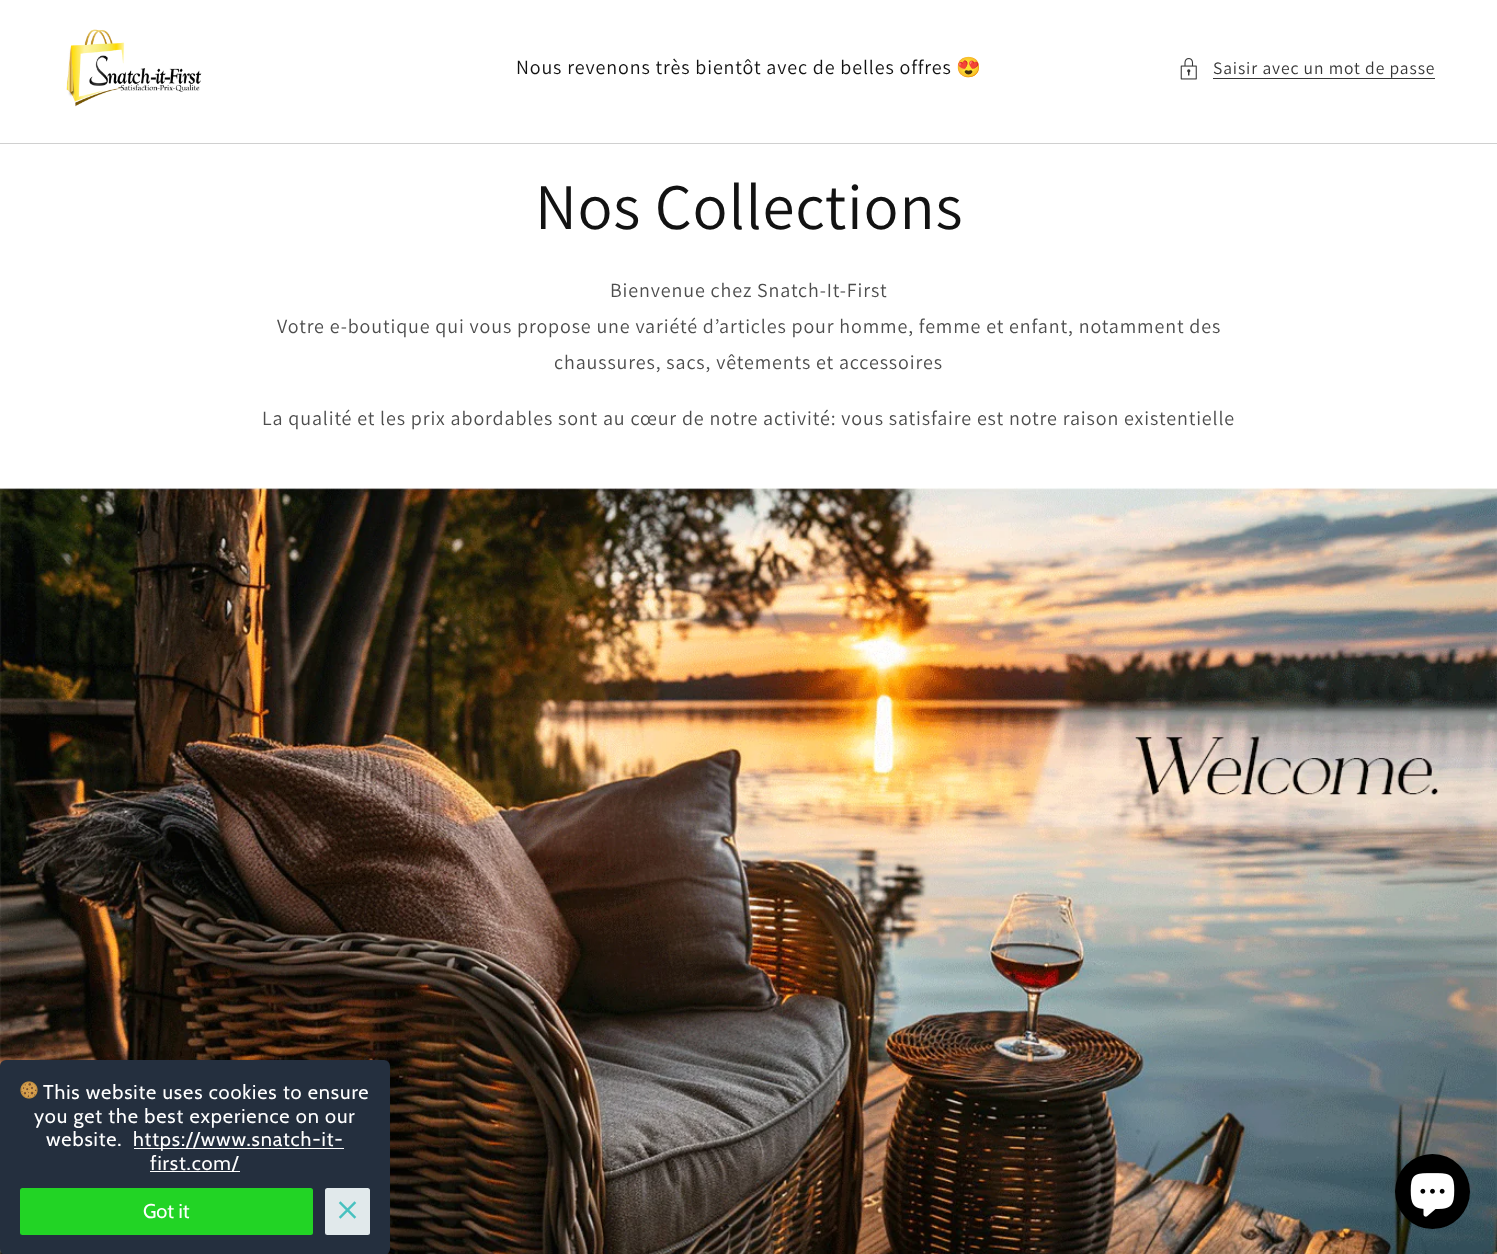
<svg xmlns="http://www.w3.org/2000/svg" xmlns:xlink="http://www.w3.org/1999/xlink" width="1497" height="1254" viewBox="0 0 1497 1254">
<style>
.cls-1{font:20px Assistant;letter-spacing:0.88px;fill:#121212}
.cls-2{font:20px Noto Color Emoji;letter-spacing:0.88px;fill:#121212}
.cls-3{font:17.5px Assistant;letter-spacing:0.88px;fill:#363636}
.cls-4{font:65px Assistant;letter-spacing:0.75px;fill:#121212}
.cls-5{font:20px Assistant;letter-spacing:0.88px;fill:#4d4d4d}
.cls-6{font:20px Cabin;letter-spacing:0.88px;fill:#ffffff}
.cls-7{font:20px Cabin;fill:#ffffff}
</style>
<defs>
<clipPath id="clip1"><path d="M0 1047H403V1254H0ZM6 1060H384C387.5 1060 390 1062.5 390 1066V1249C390 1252.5 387.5 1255 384 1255H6C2.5 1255 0 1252.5 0 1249V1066C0 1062.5 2.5 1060 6 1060Z" clip-rule="evenodd"/></clipPath>
</defs>
<rect width="100%" height="100%" fill="#ffffff"/>
<image xlink:href="image0.png" x="66" y="29" width="136" height="78"/>
<image xlink:href="image1.png" x="1180" y="58" width="17" height="22"/>
<rect fill="#363636" x="1213" y="78" width="222" height="1"/>
<rect fill="#d0d0d0" x="0" y="143" width="1497" height="1"/>
<image xlink:href="image2.png" x="0" y="487" width="1497" height="767"/>
<rect fill="#242f3e" x="0" y="1060" width="390" height="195" rx="6"/>
<g clip-path="url(#clip1)">
<rect fill="#000000" fill-opacity="0.12" filter="blur(4px)" x="0" y="1060" width="390" height="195" rx="6"/>
</g>
<image xlink:href="image3.png" x="20" y="1081" width="18" height="18"/>
<rect fill="#ffffff" x="134" y="1148" width="210" height="1"/>
<rect fill="#ffffff" x="150" y="1171" width="90" height="1"/>
<rect fill="#22d425" x="20" y="1188" width="293" height="47" rx="2.5"/>
<rect fill="#e1e9eb" x="325" y="1188" width="45" height="47" rx="2.5"/>
<image xlink:href="image4.png" x="338" y="1201" width="19" height="18"/>
<circle fill="#000000" cx="1432.5" cy="1191.5" r="37.5"/>
<image xlink:href="image5.png" x="1410" y="1173" width="45" height="44"/>
<text class="cls-1" x="516" y="74">Nous revenons très bientôt avec de belles offres</text>
<text class="cls-2" x="956" y="74">😍</text>
<text class="cls-3" x="1213" y="74">Saisir avec un mot de passe</text>
<text class="cls-4" x="535" y="229">Nos Collections</text>
<text class="cls-5" x="610" y="297">Bienvenue chez Snatch-It-First</text>
<text class="cls-5" x="277" y="333">Votre e-boutique qui vous propose une variété d’articles pour homme, femme et enfant, notamment des</text>
<text class="cls-5" x="554" y="369">chaussures, sacs, vêtements et accessoires</text>
<text class="cls-5" x="262" y="425">La qualité et les prix abordables sont au cœur de notre activité: vous satisfaire est notre raison existentielle</text>
<text class="cls-6" x="43" y="1099">This website uses cookies to ensure</text>
<text class="cls-6" x="34" y="1123">you get the best experience on our</text>
<text class="cls-6" x="46" y="1146">website.</text>
<text class="cls-6" x="133" y="1146">https://www.snatch-it-</text>
<text class="cls-6" x="150" y="1170">first.com/</text>
<text class="cls-7" x="143" y="1218">Got it</text>
</svg>
